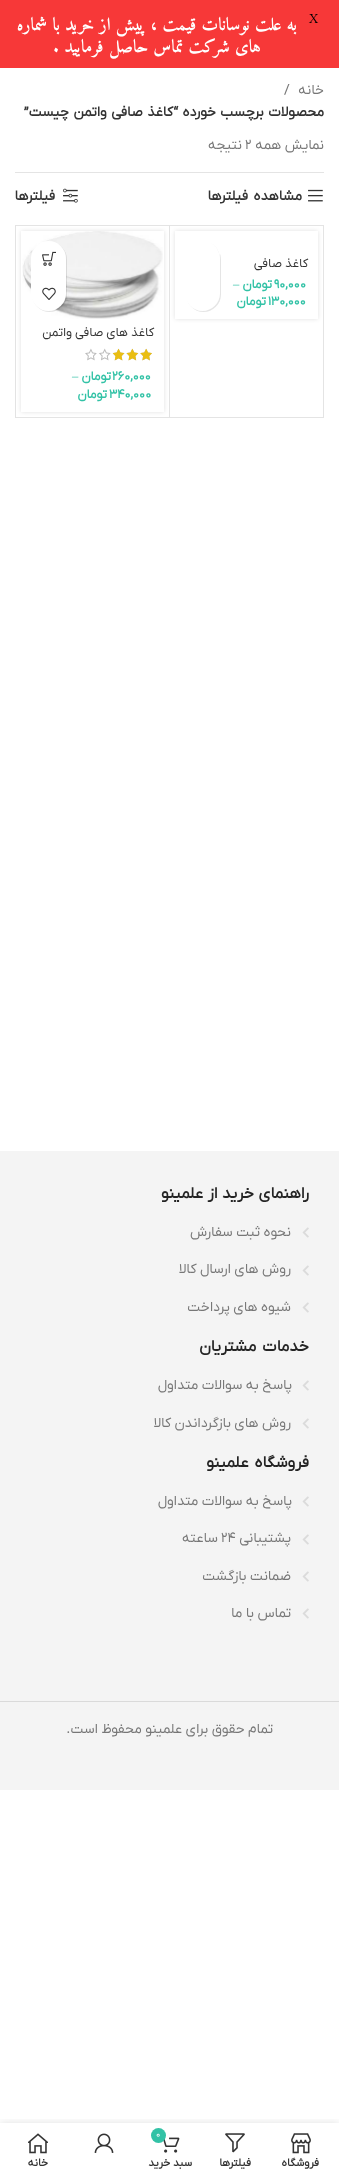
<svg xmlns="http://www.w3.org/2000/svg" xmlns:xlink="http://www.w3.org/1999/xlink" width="339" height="2178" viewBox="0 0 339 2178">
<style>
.cls-1{font:14px Amiri;fill:#000000}
.cls-2{font:bold 18px Amiri;direction:rtl;fill:#ffffff}
.cls-3{font:14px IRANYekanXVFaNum;direction:rtl;fill:#777777}
.cls-4{font:14px IRANYekanXVFaNum;fill:#777777}
.cls-5{font:bold 14px IRANYekanXVFaNum;direction:rtl;fill:#333333}
.cls-6{font:12.5px IRANYekanXVFaNum;direction:rtl;fill:#333333}
.cls-7{font:bold 12.5px IRANYekanXVFaNum;fill:#32c2a6}
.cls-8{font:bold 12.5px IRANYekanXVFaNum;direction:rtl;fill:#32c2a6}
.cls-9{font:12.5px Liberation Serif;fill:#32c2a6}
.cls-10{font:bold 16px IRANYekanXVFaNum;direction:rtl;fill:#242424}
.cls-11{font:bold 11px IRANYekanXVFaNum;direction:rtl;fill:#333333}
.cls-12{font:9px IRANYekanXVFaNum;fill:#ffffff}
</style>
<defs>
<clipPath id="clip1"><path d="M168 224H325V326H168ZM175 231H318V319H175Z" clip-rule="evenodd"/></clipPath>
<clipPath id="clip2"><path d="M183 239H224V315H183ZM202.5 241C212 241 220 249 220 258.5V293.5C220 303 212 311 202.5 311C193 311 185 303 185 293.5V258.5C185 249 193 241 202.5 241Z" clip-rule="evenodd"/></clipPath>
<clipPath id="clip3"><path d="M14 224H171V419H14ZM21 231H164V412H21Z" clip-rule="evenodd"/></clipPath>
<clipPath id="clip4"><rect x="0" y="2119" width="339" height="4"/></clipPath>
</defs>
<rect width="100%" height="100%" fill="#ffffff"/>
<rect fill="#f73838" x="0" y="0" width="339" height="68"/>
<rect fill="#e4e4e4" x="15" y="172" width="309" height="1"/>
<image xlink:href="image0.png" x="308" y="189" width="15" height="13"/>
<image xlink:href="image1.png" x="63" y="188" width="15" height="15"/>
<rect fill="#e4e4e4" x="323" y="225" width="1" height="193"/>
<path fill="#e4e4e4" d="M169 225H323V226H170Z"/>
<path fill="#e4e4e4" d="M323 418H169L170 417H323Z"/>
<path fill="#000000" fill-opacity="0.11" d="M169 418V225L170 226V417Z"/>
<g clip-path="url(#clip1)">
<rect fill="#000000" fill-opacity="0.12" filter="blur(2px)" x="175" y="231" width="143" height="88"/>
</g>
<g clip-path="url(#clip2)">
<rect fill="#000000" fill-opacity="0.1" filter="blur(0.5px)" x="186" y="242" width="35" height="70" rx="17.5"/>
</g>
<path fill="#ffffff" d="M202.5 241C212 241 220 249 220 258.5V249H185V258.5C185 249 193 241 202.5 241Z"/>
<path fill="#e4e4e4" d="M15 225H169V226H16Z"/>
<path fill="#e4e4e4" d="M169 418H15L16 417H169Z"/>
<path fill="#000000" fill-opacity="0.11" d="M15 418V225L16 226V417Z"/>
<g clip-path="url(#clip3)">
<rect fill="#000000" fill-opacity="0.12" filter="blur(2px)" x="21" y="231" width="143" height="181"/>
</g>
<image xlink:href="image2.png" x="22" y="231" width="141" height="88"/>
<rect fill="#000000" fill-opacity="0.1" filter="blur(0.5px)" x="32" y="242" width="35" height="70" rx="17.5"/>
<rect fill="#ffffff" x="31" y="241" width="35" height="70" rx="17.5"/>
<image xlink:href="image3.png" x="42" y="251" width="14" height="15"/>
<image xlink:href="image4.png" x="42" y="287" width="14" height="13"/>
<image xlink:href="image5.png" x="85" y="348" width="67" height="13"/>
<image xlink:href="image6.png" x="113" y="349" width="39" height="12"/>
<rect fill="#f4f4f4" x="0" y="1151" width="339" height="639"/>
<image xlink:href="image7.png" x="302" y="1227" width="7" height="11"/>
<image xlink:href="image7.png" x="302" y="1265" width="7" height="11"/>
<image xlink:href="image7.png" x="302" y="1302" width="7" height="11"/>
<image xlink:href="image7.png" x="302" y="1380" width="7" height="11"/>
<image xlink:href="image7.png" x="302" y="1418" width="7" height="11"/>
<image xlink:href="image7.png" x="302" y="1496" width="7" height="11"/>
<image xlink:href="image7.png" x="302" y="1534" width="7" height="11"/>
<image xlink:href="image7.png" x="302" y="1571" width="7" height="11"/>
<image xlink:href="image7.png" x="302" y="1608" width="7" height="11"/>
<rect fill="#dadada" x="0" y="1701" width="339" height="1"/>
<g clip-path="url(#clip4)">
<rect fill="#000000" fill-opacity="0.12" filter="blur(4.5px)" x="0" y="2123" width="339" height="55"/>
</g>
<image xlink:href="image8.png" x="291" y="2133" width="20" height="21"/>
<image xlink:href="image9.png" x="225" y="2133" width="20" height="20"/>
<image xlink:href="image10.png" x="163" y="2137" width="17" height="16"/>
<circle fill="#32c2a6" cx="158.5" cy="2135.5" r="7.5"/>
<image xlink:href="image11.png" x="94" y="2133" width="20" height="20"/>
<image xlink:href="image12.png" x="28" y="2133" width="20" height="21"/>
<text class="cls-1" x="309" y="23">X</text>
<text class="cls-2" x="297" y="30">به علت نوسانات قیمت ، پیش از خرید با شماره</text>
<text class="cls-2" x="261" y="52">های شرکت تماس حاصل فرمایید .</text>
<text class="cls-3" x="324" y="94">خانه</text>
<text class="cls-4" x="284" y="94">/</text>
<text class="cls-5" x="324" y="116" word-spacing="1">محصولات برچسب خورده “کاغذ صافی واتمن چیست”</text>
<text class="cls-3" x="324" y="149">نمایش همه</text>
<text class="cls-4" x="245" y="149">2</text>
<text class="cls-3" x="242" y="149">نتیجه</text>
<text class="cls-5" x="302" y="200" word-spacing="2">مشاهده فیلترها</text>
<text class="cls-5" x="55" y="200">فیلترها</text>
<text class="cls-6" x="308" y="267">کاغذ صافی</text>
<text class="cls-7" x="274" y="288">90,000</text>
<text class="cls-8" x="272" y="288">تومان</text>
<text class="cls-9" x="233" y="288">–</text>
<text class="cls-7" x="268" y="305">130,000</text>
<text class="cls-8" x="266" y="305">تومان</text>
<text class="cls-6" x="154" y="336">کاغذ های صافی واتمن</text>
<text class="cls-7" x="112" y="380">260,000</text>
<text class="cls-8" x="111" y="380">تومان</text>
<text class="cls-9" x="72" y="380">–</text>
<text class="cls-7" x="109" y="398">340,000</text>
<text class="cls-8" x="107" y="398">تومان</text>
<text class="cls-10" x="309" y="1198" word-spacing="0.5">راهنمای خرید از علمینو</text>
<text class="cls-3" x="291" y="1236">نحوه ثبت سفارش</text>
<text class="cls-3" x="291" y="1273">روش های ارسال کالا</text>
<text class="cls-3" x="291" y="1311">شیوه های پرداخت</text>
<text class="cls-10" x="309" y="1351" word-spacing="2">خدمات مشتریان</text>
<text class="cls-3" x="292" y="1389">پاسخ به سوالات متداول</text>
<text class="cls-3" x="291" y="1427">روش های بازگرداندن کالا</text>
<text class="cls-10" x="309" y="1467" word-spacing="2">فروشگاه علمینو</text>
<text class="cls-3" x="292" y="1505">پاسخ به سوالات متداول</text>
<text class="cls-3" x="291" y="1542">پشتیبانی</text>
<text class="cls-4" x="221" y="1542">24</text>
<text class="cls-3" x="218" y="1542">ساعته</text>
<text class="cls-3" x="291" y="1580">ضمانت بازگشت</text>
<text class="cls-3" x="291" y="1617">تماس با ما</text>
<text class="cls-3" x="273" y="1733">تمام حقوق برای علمینو محفوظ است.</text>
<text class="cls-11" x="319" y="2166">فروشگاه</text>
<text class="cls-11" x="251" y="2166">فیلترها</text>
<text class="cls-12" x="156" y="2137">0</text>
<text class="cls-11" x="192" y="2166">سبد خرید</text>
<text class="cls-11" x="48" y="2166">خانه</text>
</svg>
